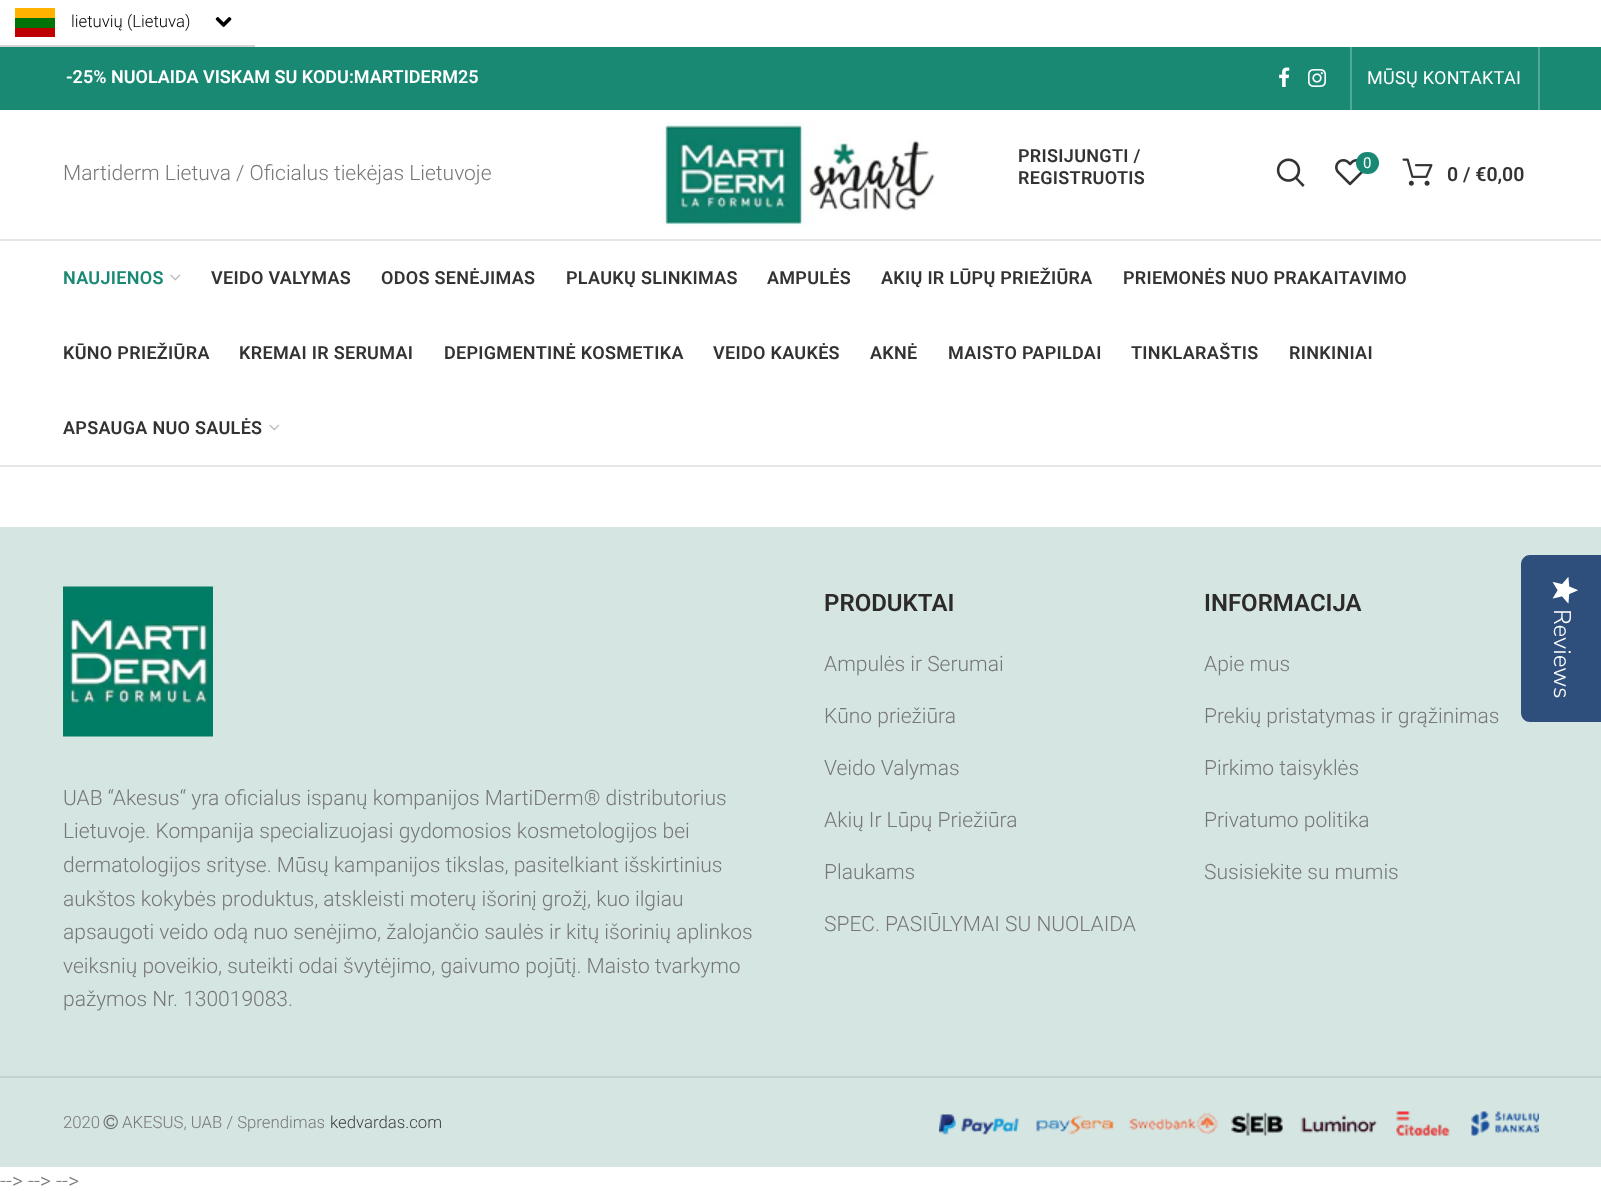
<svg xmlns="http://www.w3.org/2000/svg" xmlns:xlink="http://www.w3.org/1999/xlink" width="1601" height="1191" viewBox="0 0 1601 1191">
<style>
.cls-1{font:300 16.75px Roboto;fill:#000000}
.cls-2{font:600 18px Roboto;fill:#ffffff}
.cls-3{font:18px Roboto;letter-spacing:0.3px;fill:#ffffff}
.cls-4{font:300 21px Roboto;fill:#777777}
.cls-5{font:600 18px Roboto;letter-spacing:0.3px;fill:#333333}
.cls-6{font:15px Roboto;fill:#ffffff}
.cls-7{font:600 19.5px Roboto;fill:#333333}
.cls-8{font:600 18px Roboto;letter-spacing:0.3px;fill:#198973}
.cls-9{font:600 24px Roboto;fill:#2d2a2a}
.cls-10{font:300 16.75px Roboto;fill:#777777}
.cls-11{font:300 16.75px Roboto;fill:#3f3f3f}
.cls-12{font:300 24px Nunito Sans;fill:#ffffff}
</style>
<rect width="100%" height="100%" fill="#ffffff"/>
<rect fill="#007308" x="15" y="18" width="40" height="10"/>
<rect fill="#bf0000" x="15" y="28" width="40" height="9"/>
<rect fill="#ffb300" x="15" y="8" width="40" height="10"/>
<rect fill="#d4d4d4" x="0" y="45" width="255" height="2"/>
<image xlink:href="image0.png" x="215" y="17" width="17" height="10"/>
<rect fill="#198973" x="0" y="47" width="1601" height="63"/>
<image xlink:href="image1.png" x="1279" y="67" width="11" height="20"/>
<image xlink:href="image2.png" x="1308" y="69" width="18" height="18"/>
<rect fill="#53a796" x="1538" y="47" width="2" height="63"/>
<rect fill="#53a796" x="1350" y="47" width="2" height="63"/>
<image xlink:href="image3.png" x="660" y="122" width="275" height="107"/>
<image xlink:href="image4.png" x="1276" y="158" width="29" height="29"/>
<image xlink:href="image5.png" x="1335" y="159" width="28" height="27"/>
<rect fill="#198973" x="1356" y="152" width="23" height="22" rx="11"/>
<image xlink:href="image6.png" x="1402" y="158" width="31" height="28"/>
<rect fill="#e6e6e6" x="0" y="239" width="1601" height="2"/>
<rect fill="#e6e6e6" x="0" y="465" width="1601" height="2"/>
<image xlink:href="image7.png" x="170" y="274" width="11" height="7"/>
<image xlink:href="image7.png" x="269" y="424" width="11" height="7"/>
<rect fill="#d5e5e2" x="0" y="527" width="1601" height="640"/>
<image xlink:href="image8.png" x="63" y="586" width="150" height="151"/>
<rect fill="#c4d1cf" x="0" y="1076" width="1601" height="2"/>
<image xlink:href="image9.png" x="103" y="1114" width="15" height="16"/>
<image xlink:href="image10.png" x="939" y="1111" width="600" height="25"/>
<path fill="#2e4f7c" d="M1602 555V722H1530C1525 722 1521 718 1521 713V564C1521 559 1525 555 1530 555Z"/>
<image xlink:href="image11.png" x="1552" y="577" width="26" height="27"/>
<text class="cls-1" x="71" y="27">lietuvių (Lietuva)</text>
<text class="cls-2" x="66" y="83">-25% NUOLAIDA VISKAM SU KODU:MARTIDERM25</text>
<text class="cls-3" x="1367" y="84">MŪSŲ KONTAKTAI</text>
<text class="cls-4" x="63" y="180">Martiderm Lietuva / Oficialus tiekėjas Lietuvoje</text>
<text class="cls-5"><tspan x="1018" y="162">PRISIJUNGTI /</tspan><tspan x="1018" y="184">REGISTRUOTIS</tspan></text>
<text class="cls-6" x="1363" y="168">0</text>
<text class="cls-7" x="1447" y="181">0 / €0,00</text>
<text class="cls-8" x="63" y="284">NAUJIENOS</text>
<text class="cls-5" x="211" y="284">VEIDO VALYMAS</text>
<text class="cls-5" x="381" y="284">ODOS SENĖJIMAS</text>
<text class="cls-5" x="566" y="284">PLAUKŲ SLINKIMAS</text>
<text class="cls-5" x="767" y="284">AMPULĖS</text>
<text class="cls-5" x="881" y="284">AKIŲ IR LŪPŲ PRIEŽIŪRA</text>
<text class="cls-5" x="1123" y="284">PRIEMONĖS NUO PRAKAITAVIMO</text>
<text class="cls-5" x="63" y="359">KŪNO PRIEŽIŪRA</text>
<text class="cls-5" x="239" y="359">KREMAI IR SERUMAI</text>
<text class="cls-5" x="444" y="359">DEPIGMENTINĖ KOSMETIKA</text>
<text class="cls-5" x="713" y="359">VEIDO KAUKĖS</text>
<text class="cls-5" x="870" y="359">AKNĖ</text>
<text class="cls-5" x="948" y="359">MAISTO PAPILDAI</text>
<text class="cls-5" x="1131" y="359">TINKLARAŠTIS</text>
<text class="cls-5" x="1289" y="359">RINKINIAI</text>
<text class="cls-5" x="63" y="434">APSAUGA NUO SAULĖS</text>
<text class="cls-4"><tspan x="63" y="805">UAB ‘‘Akesus‘‘ yra oficialus ispanų kompanijos MartiDerm® distributorius</tspan><tspan x="63" y="838">Lietuvoje. Kompanija specializuojasi gydomosios kosmetologijos bei</tspan><tspan x="63" y="872">dermatologijos srityse. Mūsų kampanijos tikslas, pasitelkiant išskirtinius</tspan><tspan x="63" y="906">aukštos kokybės produktus, atskleisti moterų išorinį grožį, kuo ilgiau</tspan><tspan x="63" y="939">apsaugoti veido odą nuo senėjimo, žalojančio saulės ir kitų išorinių aplinkos</tspan><tspan x="63" y="973">veiksnių poveikio, suteikti odai švytėjimo, gaivumo pojūtį. Maisto tvarkymo</tspan><tspan x="63" y="1006">pažymos Nr. 130019083.</tspan></text>
<text class="cls-9" x="824" y="611">PRODUKTAI</text>
<text class="cls-4" x="824" y="671">Ampulės ir Serumai</text>
<text class="cls-4" x="824" y="723">Kūno priežiūra</text>
<text class="cls-4" x="824" y="775">Veido Valymas</text>
<text class="cls-4" x="824" y="827">Akių Ir Lūpų Priežiūra</text>
<text class="cls-4" x="824" y="879">Plaukams</text>
<text class="cls-4" x="824" y="931">SPEC. PASIŪLYMAI SU NUOLAIDA</text>
<text class="cls-9" x="1204" y="611">INFORMACIJA</text>
<text class="cls-4" x="1204" y="671">Apie mus</text>
<text class="cls-4" x="1204" y="723">Prekių pristatymas ir grąžinimas</text>
<text class="cls-4" x="1204" y="775">Pirkimo taisyklės</text>
<text class="cls-4" x="1204" y="827">Privatumo politika</text>
<text class="cls-4" x="1204" y="879">Susisiekite su mumis</text>
<text class="cls-10" x="63" y="1128">2020</text>
<text class="cls-10" x="122" y="1128">AKESUS, UAB / Sprendimas</text>
<text class="cls-11" x="330" y="1128">kedvardas.com</text>
<text class="cls-12" x="1554" y="609" transform="rotate(90 1554 609)">Reviews</text>
<text class="cls-4" x="0" y="1188">--&gt; --&gt; --&gt;</text>
</svg>
